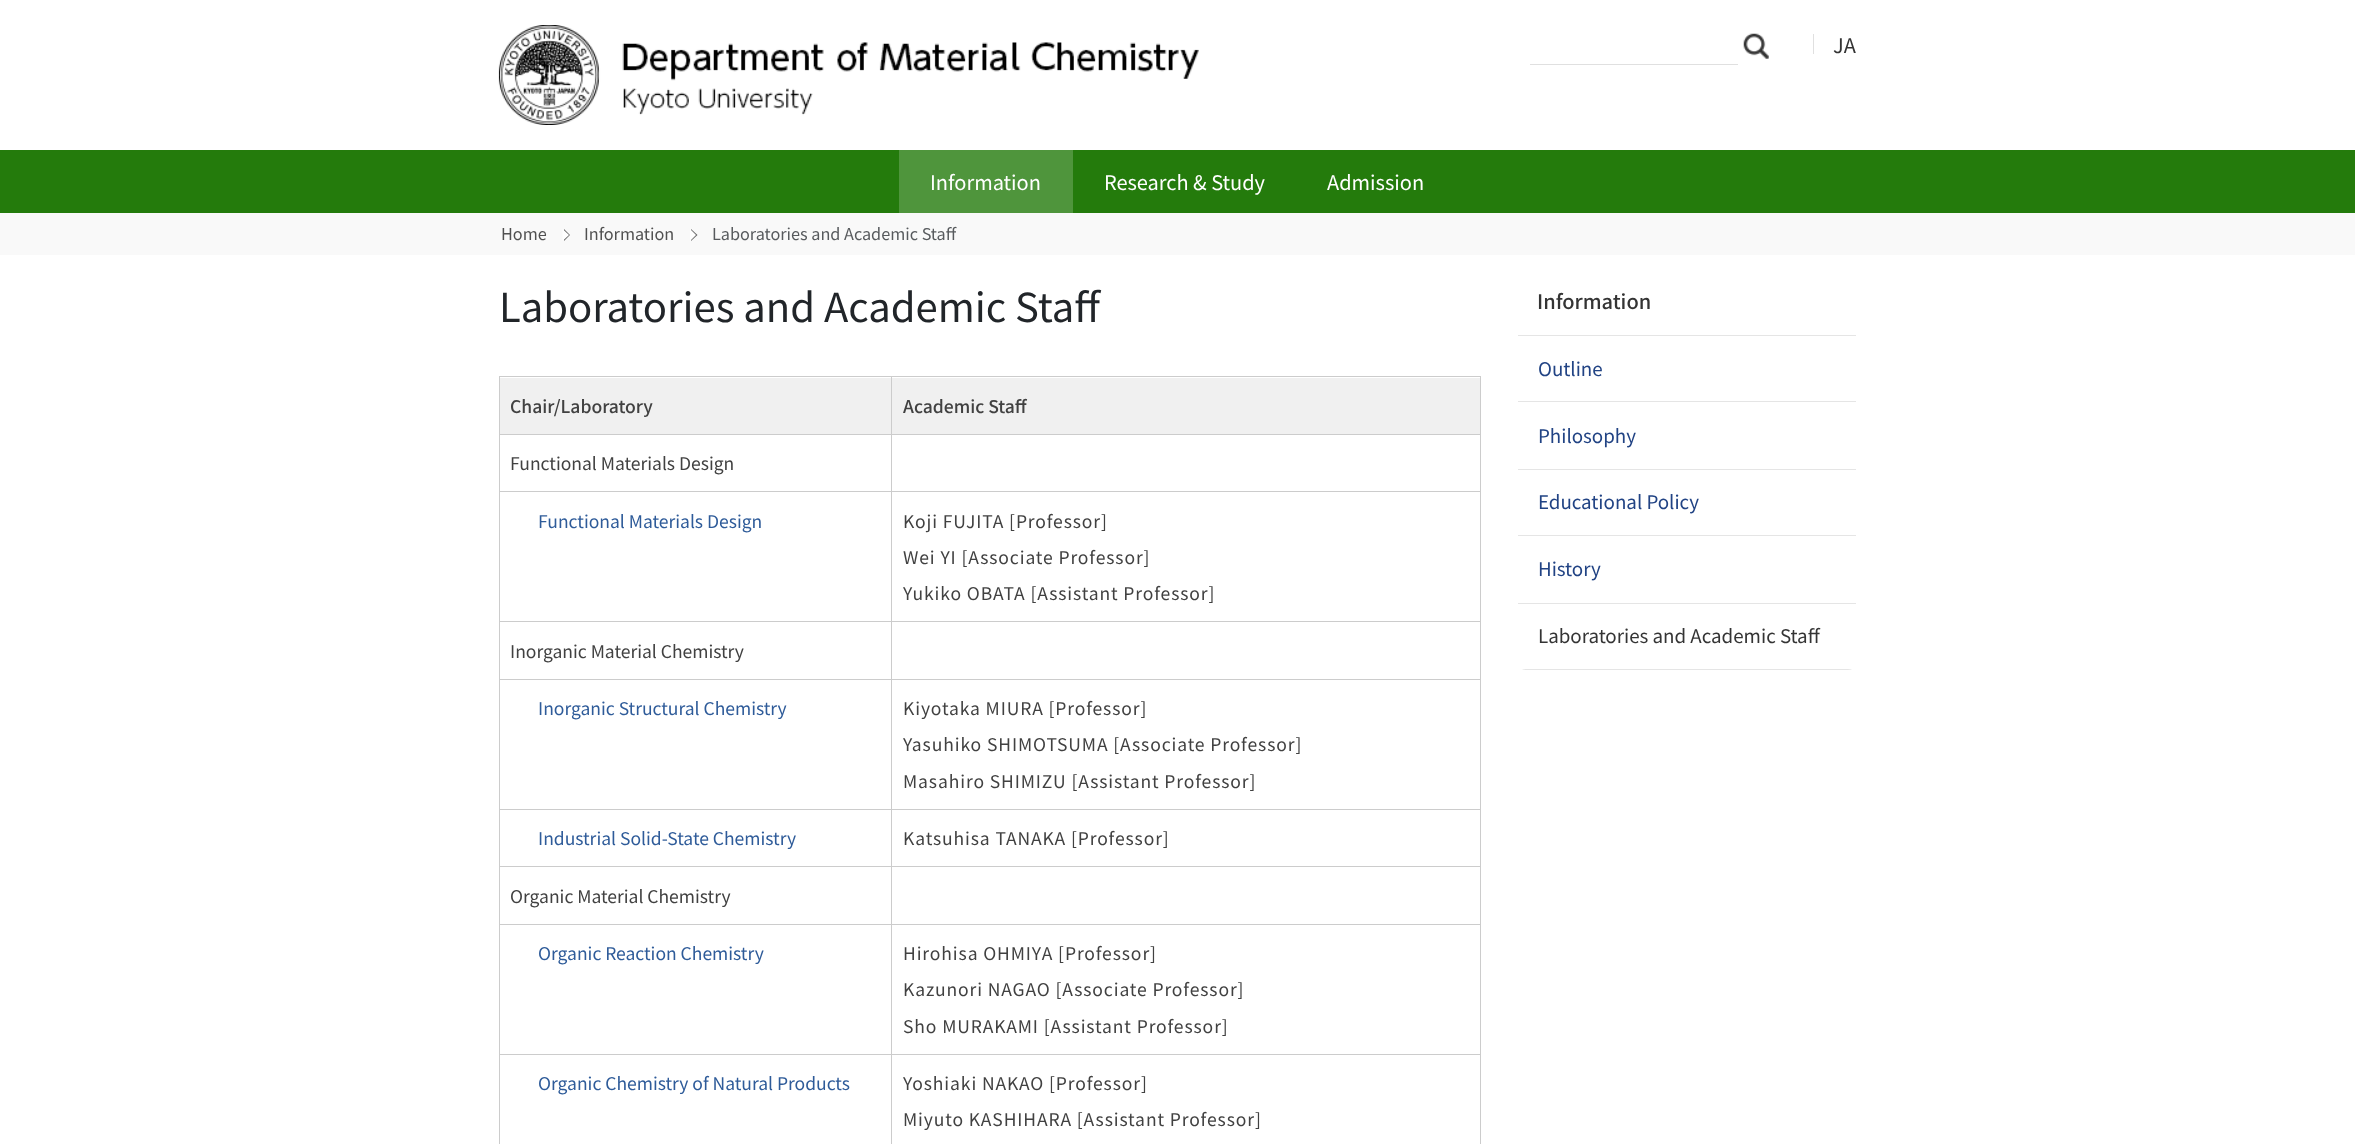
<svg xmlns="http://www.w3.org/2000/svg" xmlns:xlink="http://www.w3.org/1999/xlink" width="2355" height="1144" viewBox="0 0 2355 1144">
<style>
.cls-1{font:20px Noto Sans JP;fill:#343434}
.cls-2{font:20px Noto Sans JP;fill:#ffffff}
.cls-3{font:16.25px Noto Sans JP;fill:#505050}
.cls-4{font:16.25px Noto Sans JP;fill:#575a5d}
.cls-5{font:40px Noto Sans JP;fill:#212529}
.cls-6{font:500 17.5px Noto Sans JP;fill:#414141}
.cls-7{font:17.5px Noto Sans JP;fill:#414141}
.cls-8{font:17.5px Noto Sans JP;fill:#2e5b99}
.cls-9{font:17.5px Noto Sans JP;letter-spacing:0.9px;fill:#414141}
.cls-10{font:500 20px Noto Sans JP;fill:#343434}
.cls-11{font:18.75px Noto Sans JP;fill:#214384}
.cls-12{font:18.75px Noto Sans JP;fill:#343434}
</style>
<defs>
<clipPath id="clip1"><rect x="1518" y="268" width="338" height="402" rx="8"/></clipPath>
</defs>
<rect width="100%" height="100%" fill="#ffffff"/>
<image xlink:href="image0.png" x="498" y="25" width="701" height="100"/>
<rect fill="#e0e0e0" x="1813" y="34" width="1" height="20"/>
<rect fill="#247b0c" x="0" y="150" width="2355" height="63"/>
<image xlink:href="image1.png" x="1743" y="33" width="26" height="26"/>
<rect fill="#e0e0e0" x="1530" y="64" width="208" height="1"/>
<rect fill="#4f953c" x="899" y="150" width="174" height="63"/>
<rect fill="#f9f9f9" x="0" y="213" width="2355" height="42"/>
<path fill="#696969" d="M564 241V229L570 235Z"/>
<path fill="#ffffff" d="M562.5 241V229L569 235Z"/>
<path fill="#696969" d="M691 241V229L697.5 235Z"/>
<path fill="#ffffff" d="M690 241V229L696 235Z"/>
<rect fill="#cccccc" x="499" y="376" width="982" height="1"/>
<rect fill="#f0f0f0" x="500" y="378" width="980" height="56"/>
<rect fill="#cccccc" x="1480" y="376" width="1" height="768"/>
<rect fill="#cccccc" x="891" y="1054" width="1" height="90"/>
<rect fill="#cccccc" x="891" y="1054" width="590" height="1"/>
<rect fill="#cccccc" x="891" y="924" width="1" height="131"/>
<rect fill="#cccccc" x="891" y="924" width="590" height="1"/>
<rect fill="#cccccc" x="891" y="866" width="1" height="59"/>
<rect fill="#cccccc" x="891" y="866" width="590" height="1"/>
<rect fill="#cccccc" x="891" y="809" width="1" height="59"/>
<rect fill="#cccccc" x="891" y="809" width="590" height="1"/>
<rect fill="#cccccc" x="891" y="679" width="1" height="131"/>
<rect fill="#cccccc" x="891" y="679" width="590" height="1"/>
<rect fill="#cccccc" x="891" y="621" width="1" height="59"/>
<rect fill="#cccccc" x="891" y="621" width="590" height="1"/>
<rect fill="#cccccc" x="891" y="491" width="1" height="132"/>
<rect fill="#cccccc" x="891" y="491" width="590" height="1"/>
<rect fill="#cccccc" x="891" y="434" width="1" height="59"/>
<rect fill="#cccccc" x="891" y="434" width="590" height="1"/>
<rect fill="#cccccc" x="891" y="376" width="1" height="59"/>
<rect fill="#cccccc" x="499" y="1054" width="1" height="90"/>
<rect fill="#cccccc" x="499" y="1054" width="394" height="1"/>
<rect fill="#cccccc" x="499" y="924" width="1" height="131"/>
<rect fill="#cccccc" x="499" y="924" width="394" height="1"/>
<rect fill="#cccccc" x="499" y="866" width="1" height="59"/>
<rect fill="#cccccc" x="499" y="866" width="394" height="1"/>
<rect fill="#cccccc" x="499" y="809" width="1" height="59"/>
<rect fill="#cccccc" x="499" y="809" width="394" height="1"/>
<rect fill="#cccccc" x="499" y="679" width="1" height="131"/>
<rect fill="#cccccc" x="499" y="679" width="394" height="1"/>
<rect fill="#cccccc" x="499" y="621" width="1" height="59"/>
<rect fill="#cccccc" x="499" y="621" width="394" height="1"/>
<rect fill="#cccccc" x="499" y="491" width="1" height="132"/>
<rect fill="#cccccc" x="499" y="491" width="394" height="1"/>
<rect fill="#cccccc" x="499" y="434" width="1" height="59"/>
<rect fill="#cccccc" x="499" y="434" width="394" height="1"/>
<rect fill="#cccccc" x="499" y="376" width="1" height="59"/>
<rect fill="#e5e5e5" x="1518" y="335" width="338" height="1"/>
<rect fill="#e5e5e5" x="1518" y="401" width="338" height="1"/>
<rect fill="#e5e5e5" x="1518" y="469" width="338" height="1"/>
<rect fill="#e5e5e5" x="1518" y="535" width="338" height="1"/>
<rect fill="#e5e5e5" x="1518" y="603" width="338" height="1"/>
<g clip-path="url(#clip1)">
<rect fill="#e5e5e5" x="1518" y="669" width="338" height="1"/>
</g>
<text class="cls-1" x="1833" y="53">JA</text>
<text class="cls-2" x="930" y="190">Information</text>
<text class="cls-2" x="1104" y="190">Research &amp; Study</text>
<text class="cls-2" x="1327" y="190">Admission</text>
<text class="cls-3" x="501" y="240">Home</text>
<text class="cls-3" x="584" y="240">Information</text>
<text class="cls-4" x="712" y="240">Laboratories and Academic Staff</text>
<text class="cls-5" x="499" y="322">Laboratories and Academic Staff</text>
<text class="cls-6" x="510" y="413">Chair/Laboratory</text>
<text class="cls-6" x="903" y="413">Academic Staff</text>
<text class="cls-7" x="510" y="470">Functional Materials Design</text>
<text class="cls-8" x="538" y="528">Functional Materials Design</text>
<text class="cls-9" x="903" y="528">Koji FUJITA [Professor]</text>
<text class="cls-9" x="903" y="564">Wei YI [Associate Professor]</text>
<text class="cls-9" x="903" y="600">Yukiko OBATA [Assistant Professor]</text>
<text class="cls-7" x="510" y="658">Inorganic Material Chemistry</text>
<text class="cls-8" x="538" y="715">Inorganic Structural Chemistry</text>
<text class="cls-9" x="903" y="715">Kiyotaka MIURA [Professor]</text>
<text class="cls-9" x="903" y="751">Yasuhiko SHIMOTSUMA [Associate Professor]</text>
<text class="cls-9" x="903" y="788">Masahiro SHIMIZU [Assistant Professor]</text>
<text class="cls-8" x="538" y="845">Industrial Solid-State Chemistry</text>
<text class="cls-9" x="903" y="845">Katsuhisa TANAKA [Professor]</text>
<text class="cls-7" x="510" y="903">Organic Material Chemistry</text>
<text class="cls-8" x="538" y="960">Organic Reaction Chemistry</text>
<text class="cls-9" x="903" y="960">Hirohisa OHMIYA [Professor]</text>
<text class="cls-9" x="903" y="996">Kazunori NAGAO [Associate Professor]</text>
<text class="cls-9" x="903" y="1033">Sho MURAKAMI [Assistant Professor]</text>
<text class="cls-8" x="538" y="1090">Organic Chemistry of Natural Products</text>
<text class="cls-9" x="903" y="1090">Yoshiaki NAKAO [Professor]</text>
<text class="cls-9" x="903" y="1126">Miyuto KASHIHARA [Assistant Professor]</text>
<text class="cls-10" x="1537" y="309">Information</text>
<text class="cls-11" x="1538" y="376">Outline</text>
<text class="cls-11" x="1538" y="443">Philosophy</text>
<text class="cls-11" x="1538" y="509">Educational Policy</text>
<text class="cls-11" x="1538" y="576">History</text>
<text class="cls-12" x="1538" y="643">Laboratories and Academic Staff</text>
</svg>
